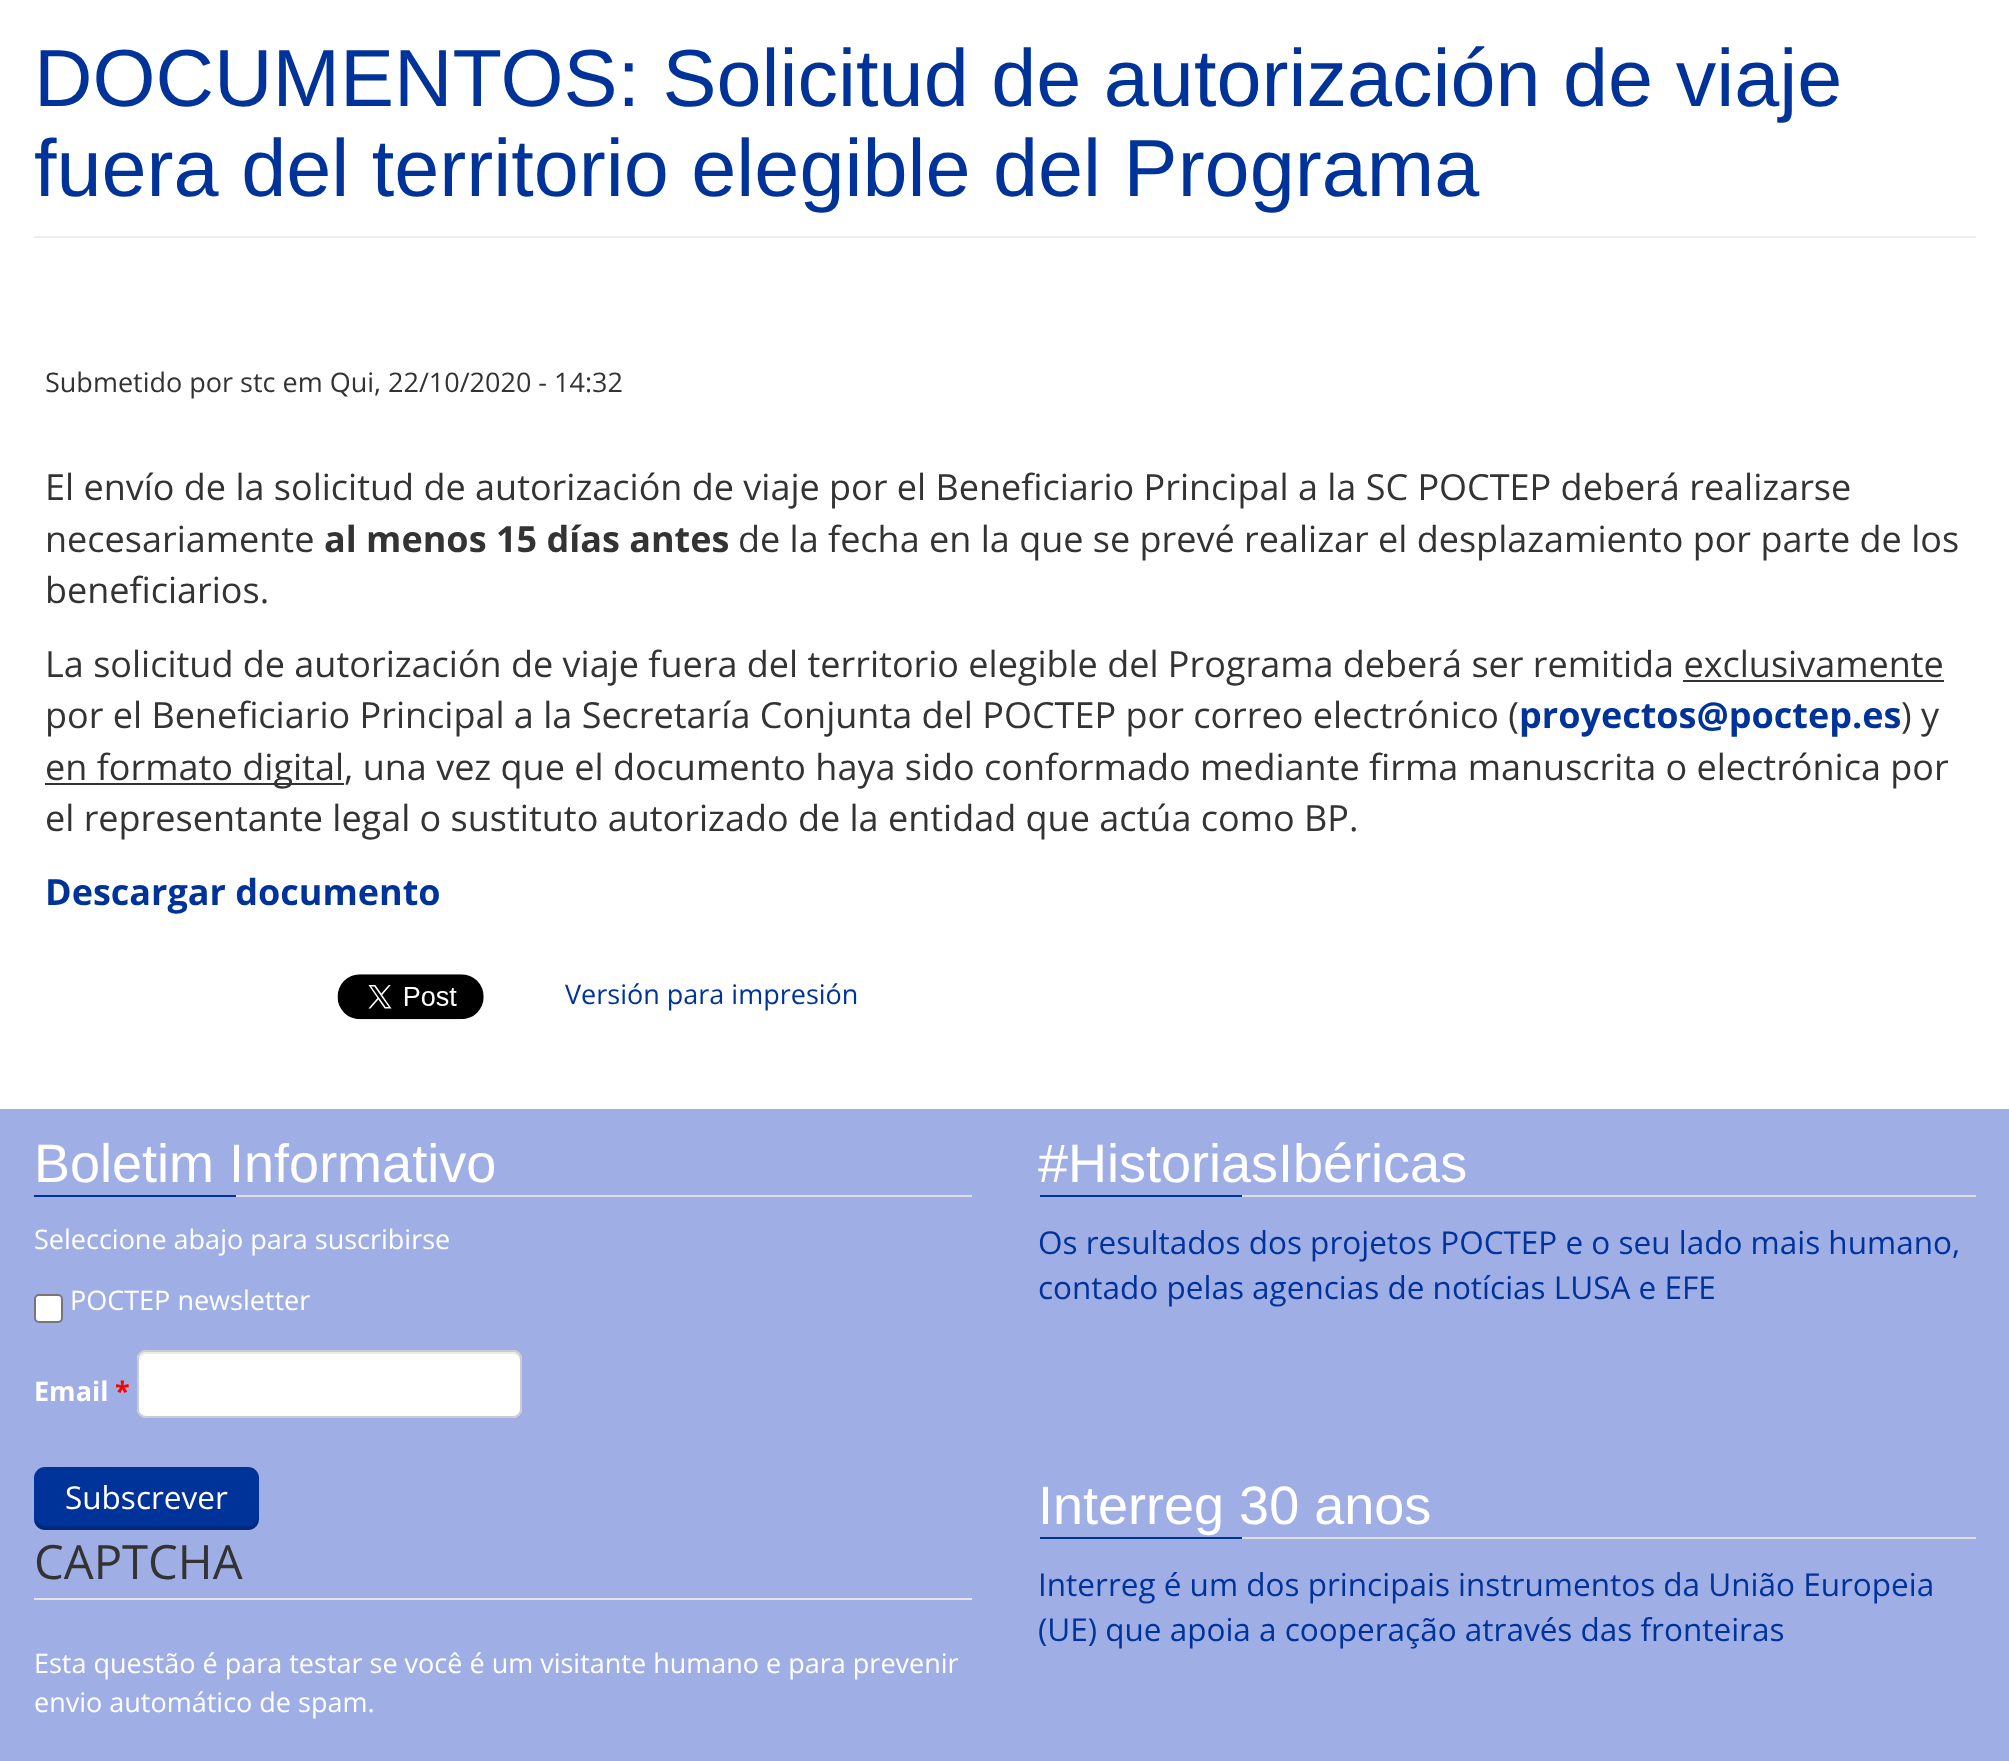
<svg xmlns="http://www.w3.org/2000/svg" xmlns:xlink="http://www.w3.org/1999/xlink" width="2009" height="1761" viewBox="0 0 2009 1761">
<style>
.cls-1{font:81px Liberation Sans;fill:#003399}
.cls-2{font:27px Open Sans;fill:#333333}
.cls-3{font:36px Open Sans;fill:#333333}
.cls-4{font:bold 36px Open Sans;fill:#333333}
.cls-5{font:bold 36px Open Sans;fill:#003399}
.cls-6{font:27px Open Sans;fill:#003399}
.cls-7{font:54px Liberation Sans;fill:#ffffff}
.cls-8{font:27px Open Sans;fill:#ffffff}
.cls-9{font:bold 27px Open Sans;fill:#ffffff}
.cls-10{font:bold 27px Open Sans;fill:#ff0000}
.cls-11{font:31.5px Open Sans;fill:#ffffff}
.cls-12{font:47.25px Open Sans;fill:#333333}
.cls-13{font:31.5px Open Sans;fill:#003399}
</style>
<rect width="100%" height="100%" fill="#ffffff"/>
<rect fill="#eeeeee" x="34" y="236" width="1942" height="2"/>
<rect fill="#333333" x="1683" y="680" width="261" height="2"/>
<rect fill="#333333" x="45" y="783" width="299" height="2"/>
<image xlink:href="image0.png" x="337" y="974" width="147" height="46"/>
<rect fill="#9faee5" x="0" y="1109" width="2009" height="652"/>
<rect fill="#dddddd" x="236" y="1195" width="736" height="2"/>
<rect fill="#003399" x="34" y="1195" width="202" height="2"/>
<rect fill="#ffffff" stroke="#767676" stroke-width="2" x="35" y="1295" width="27" height="27" rx="4"/>
<rect fill="#ffffff" x="137" y="1350" width="385" height="68" rx="9"/>
<path fill="#ececec" d="M146 1354H513C517 1354 520 1358 520 1361V1359C520 1355 517 1352 513 1352H147C143 1352 140 1355 140 1359V1361C140 1358 143 1354 146 1354Z"/>
<rect fill="none" stroke="#cccccc" stroke-width="2" x="138" y="1351" width="383" height="66" rx="8"/>
<rect fill="#003399" x="34" y="1467" width="225" height="63" rx="11"/>
<path fill="#000000" fill-opacity="0.2" d="M34 1514V1519C34 1525 39 1530 45 1530H248C254 1530 259 1525 259 1519V1514C259 1520 254 1526 248 1526H45C39 1526 34 1520 34 1514Z"/>
<rect fill="#e5e5e5" x="34" y="1598" width="938" height="2"/>
<rect fill="#dddddd" x="1242" y="1195" width="734" height="2"/>
<rect fill="#003399" x="1040" y="1195" width="202" height="2"/>
<rect fill="#dddddd" x="1242" y="1537" width="734" height="2"/>
<rect fill="#003399" x="1040" y="1537" width="202" height="2"/>
<text class="cls-1"><tspan x="34" y="106">DOCUMENTOS: Solicitud de autorización de viaje</tspan><tspan x="34" y="196">fuera del territorio elegible del Programa</tspan></text>
<text class="cls-2" x="45" y="392">Submetido por stc em Qui, 22/10/2020 - 14:32</text>
<text class="cls-3"><tspan x="45" y="500">El envío de la solicitud de autorización de viaje por el Beneficiario Principal a la SC POCTEP deberá realizarse</tspan><tspan x="45" y="552">necesariamente</tspan></text>
<text class="cls-4" x="324" y="552">al menos 15 días antes</text>
<text class="cls-3" x="738" y="552">de la fecha en la que se prevé realizar el desplazamiento por parte de los</text>
<text class="cls-3" x="45" y="603">beneficiarios.</text>
<text class="cls-3"><tspan x="45" y="677">La solicitud de autorización de viaje fuera del territorio elegible del Programa deberá ser remitida exclusivamente</tspan><tspan x="45" y="728">por el Beneficiario Principal a la Secretaría Conjunta del POCTEP por correo electrónico (</tspan></text>
<text class="cls-5" x="1519" y="728">proyectos@poctep.es</text>
<text class="cls-3" x="1901" y="728">) y</text>
<text class="cls-3"><tspan x="45" y="780">en formato digital, una vez que el documento haya sido conformado mediante firma manuscrita o electrónica por</tspan><tspan x="45" y="831">el representante legal o sustituto autorizado de la entidad que actúa como BP.</tspan></text>
<text class="cls-5" x="45" y="905">Descargar documento</text>
<text class="cls-6" x="565" y="1004">Versión para impresión</text>
<text class="cls-7" x="34" y="1182">Boletim Informativo</text>
<text class="cls-8" x="34" y="1249">Seleccione abajo para suscribirse</text>
<text class="cls-8" x="70" y="1310">POCTEP newsletter</text>
<text class="cls-9" x="34" y="1401">Email</text>
<text class="cls-10" x="115" y="1401">*</text>
<text class="cls-11" x="65" y="1509">Subscrever</text>
<text class="cls-12" x="34" y="1579">CAPTCHA</text>
<text class="cls-8"><tspan x="34" y="1673">Esta questão é para testar se você é um visitante humano e para prevenir</tspan><tspan x="34" y="1712">envio automático de spam.</tspan></text>
<text class="cls-7" x="1038" y="1182">#HistoriasIbéricas</text>
<text class="cls-13"><tspan x="1038" y="1254">Os resultados dos projetos POCTEP e o seu lado mais humano,</tspan><tspan x="1038" y="1299">contado pelas agencias de notícias LUSA e EFE</tspan></text>
<text class="cls-7" x="1038" y="1524">Interreg 30 anos</text>
<text class="cls-13"><tspan x="1038" y="1596">Interreg é um dos principais instrumentos da União Europeia</tspan><tspan x="1038" y="1641">(UE) que apoia a cooperação através das fronteiras</tspan></text>
</svg>
